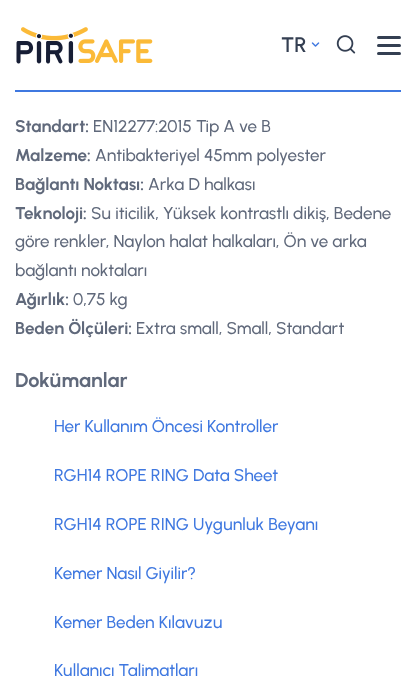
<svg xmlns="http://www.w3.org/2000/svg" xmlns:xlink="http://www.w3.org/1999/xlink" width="416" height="676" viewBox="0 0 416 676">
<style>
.cls-1{font:600 21px Urbanist;fill:#343f52}
.cls-2{font:bold 17px Urbanist;fill:#60697b}
.cls-3{font:500 17px Urbanist;fill:#60697b}
.cls-4{font:bold 20px Urbanist;fill:#60697b}
.cls-5{font:500 17px Urbanist;fill:#3f78e0}
</style>
<rect width="100%" height="100%" fill="#ffffff"/>
<image xlink:href="image0.png" x="16" y="27" width="137" height="37"/>
<image xlink:href="image1.png" x="311" y="42" width="9" height="5"/>
<image xlink:href="image2.png" x="336" y="35" width="20" height="19"/>
<rect fill="#343f52" x="377" y="36" width="24" height="3" rx="1.5"/>
<rect fill="#343f52" x="377" y="44" width="24" height="3" rx="1.5"/>
<rect fill="#343f52" x="377" y="52" width="24" height="3" rx="1.5"/>
<rect fill="#3f78e0" x="15" y="90" width="386" height="2"/>
<text class="cls-1" x="281" y="52">TR</text>
<text class="cls-2" x="15" y="132">Standart:</text>
<text class="cls-3" x="93" y="132">EN12277:2015 Tip A ve B</text>
<text class="cls-2" x="15" y="161">Malzeme:</text>
<text class="cls-3" x="95" y="161">Antibakteriyel 45mm polyester</text>
<text class="cls-2" x="15" y="190">Bağlantı Noktası:</text>
<text class="cls-3" x="148" y="190">Arka D halkası</text>
<text class="cls-2" x="15" y="219">Teknoloji:</text>
<text class="cls-3" x="91" y="219">Su iticilik, Yüksek kontrastlı dikiş, Bedene</text>
<text class="cls-3"><tspan x="15" y="247">göre renkler, Naylon halat halkaları, Ön ve arka</tspan><tspan x="15" y="276">bağlantı noktaları</tspan></text>
<text class="cls-2" x="15" y="305">Ağırlık:</text>
<text class="cls-3" x="73" y="305">0,75 kg</text>
<text class="cls-2" x="15" y="334">Beden Ölçüleri:</text>
<text class="cls-3" x="136" y="334">Extra small, Small, Standart</text>
<text class="cls-4" x="15" y="387">Dokümanlar</text>
<text class="cls-5" x="54" y="432">Her Kullanım Öncesi Kontroller</text>
<text class="cls-5" x="54" y="481">RGH14 ROPE RING Data Sheet</text>
<text class="cls-5" x="54" y="530">RGH14 ROPE RING Uygunluk Beyanı</text>
<text class="cls-5" x="54" y="579">Kemer Nasıl Giyilir?</text>
<text class="cls-5" x="54" y="628">Kemer Beden Kılavuzu</text>
<text class="cls-5" x="54" y="676">Kullanıcı Talimatları</text>
</svg>
